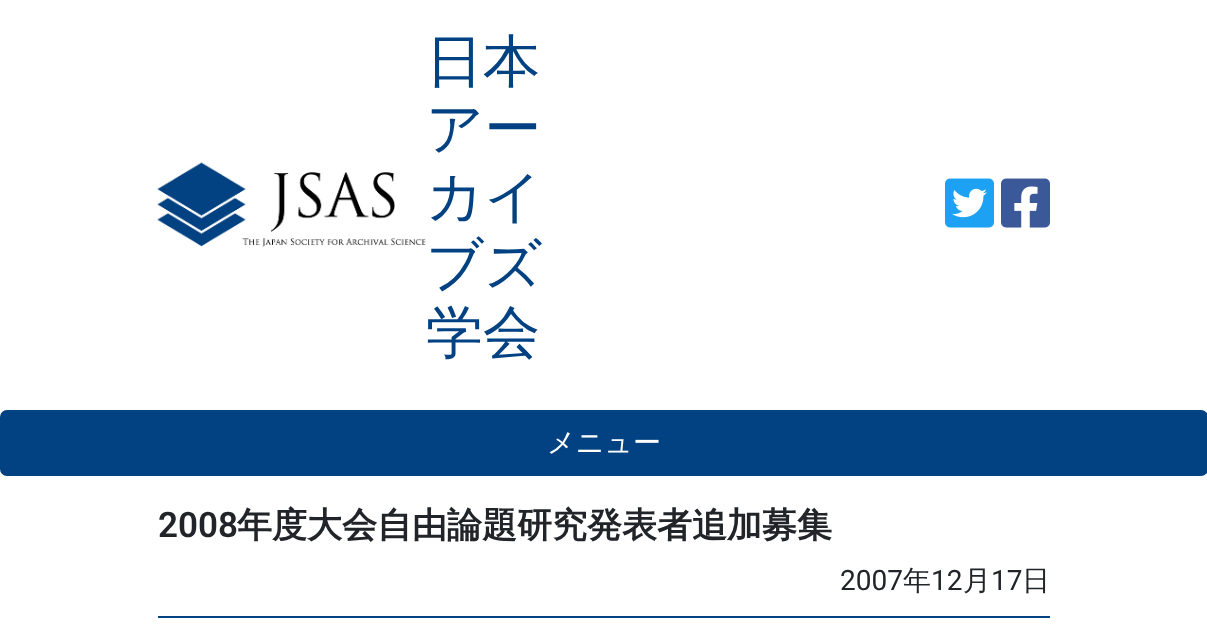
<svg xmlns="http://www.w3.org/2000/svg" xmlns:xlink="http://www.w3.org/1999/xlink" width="1207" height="627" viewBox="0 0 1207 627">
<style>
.cls-1{font:500 57px WenQuanYi Zen Hei;fill:#024282}
.cls-2{font:500 28px WenQuanYi Zen Hei;fill:#ffffff}
.cls-3{font:600 35px Roboto;fill:#212529}
.cls-4{font:bold 35px WenQuanYi Zen Hei;fill:#212529}
.cls-5{font:28px Roboto;fill:#212529}
.cls-6{font:500 28px WenQuanYi Zen Hei;fill:#212529}
</style>
<rect width="100%" height="100%" fill="#ffffff"/>
<image xlink:href="image0.png" x="157" y="162" width="269" height="85"/>
<image xlink:href="image1.png" x="945" y="178" width="49" height="50"/>
<image xlink:href="image2.png" x="1001" y="178" width="49" height="50"/>
<rect fill="#024282" stroke="#024282" stroke-width="2" x="1" y="411" width="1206" height="64" rx="6"/>
<rect fill="#024282" x="158" y="616" width="892" height="2"/>
<text class="cls-1"><tspan x="426" y="81">日本</tspan><tspan x="426" y="148">アー</tspan><tspan x="426" y="216">カイ</tspan><tspan x="426" y="284">ブズ</tspan><tspan x="426" y="352">学会</tspan></text>
<text class="cls-2" x="547" y="452">メニュー</text>
<text class="cls-3" x="158" y="537">2008</text>
<text class="cls-4" x="237" y="537">年度大会自由論題研究発表者追加募集</text>
<text class="cls-5" x="840" y="590">2007</text>
<text class="cls-6" x="903" y="590">年</text>
<text class="cls-5" x="931" y="590">12</text>
<text class="cls-6" x="963" y="590">月</text>
<text class="cls-5" x="991" y="590">17</text>
<text class="cls-6" x="1022" y="590">日</text>
</svg>
